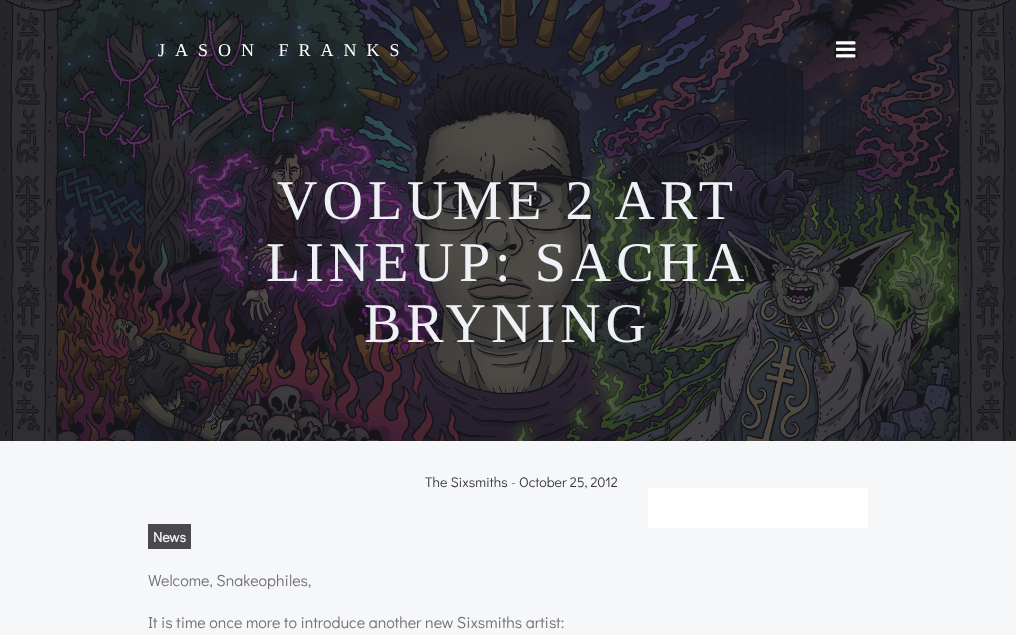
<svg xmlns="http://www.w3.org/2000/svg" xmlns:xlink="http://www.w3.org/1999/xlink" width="1016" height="635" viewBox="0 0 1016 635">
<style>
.cls-1{font:18px Liberation Serif;letter-spacing:10px;fill:#ffffff}
.cls-2{font:56px Liberation Serif;letter-spacing:5px;fill:#eef1f5}
.cls-3{font:14px Didact Gothic;fill:#373739}
.cls-4{font:14px Didact Gothic;fill:#717175}
.cls-5{font:bold 14px Didact Gothic;fill:#eef1f5}
.cls-6{font:16px Didact Gothic;fill:#717175}
</style>
<rect width="100%" height="100%" fill="#ffffff"/>
<image xlink:href="image1.png" x="0" y="0" width="1016" height="441"/>
<image xlink:href="image0.png" x="836" y="41" width="20" height="17"/>
<rect fill="#f5f7f8" x="0" y="441" width="1016" height="194"/>
<rect fill="#4a4a4c" x="148" y="524" width="43" height="25"/>
<rect fill="#ffffff" x="648" y="488" width="220" height="40"/>
<text class="cls-1" x="158" y="56">JASON FRANKS</text>
<text class="cls-2" x="277" y="219">VOLUME 2 ART</text>
<text class="cls-2" x="266" y="281">LINEUP: SACHA</text>
<text class="cls-2" x="364" y="342">BRYNING</text>
<text class="cls-3" x="425" y="487">The Sixsmiths</text>
<text class="cls-4" x="511" y="487">-</text>
<text class="cls-3" x="519" y="487">October 25, 2012</text>
<text class="cls-5" x="153" y="542">News</text>
<text class="cls-6" x="148" y="586">Welcome, Snakeophiles,</text>
<text class="cls-6" x="148" y="628">It is time once more to introduce another new Sixsmiths artist:</text>
</svg>
